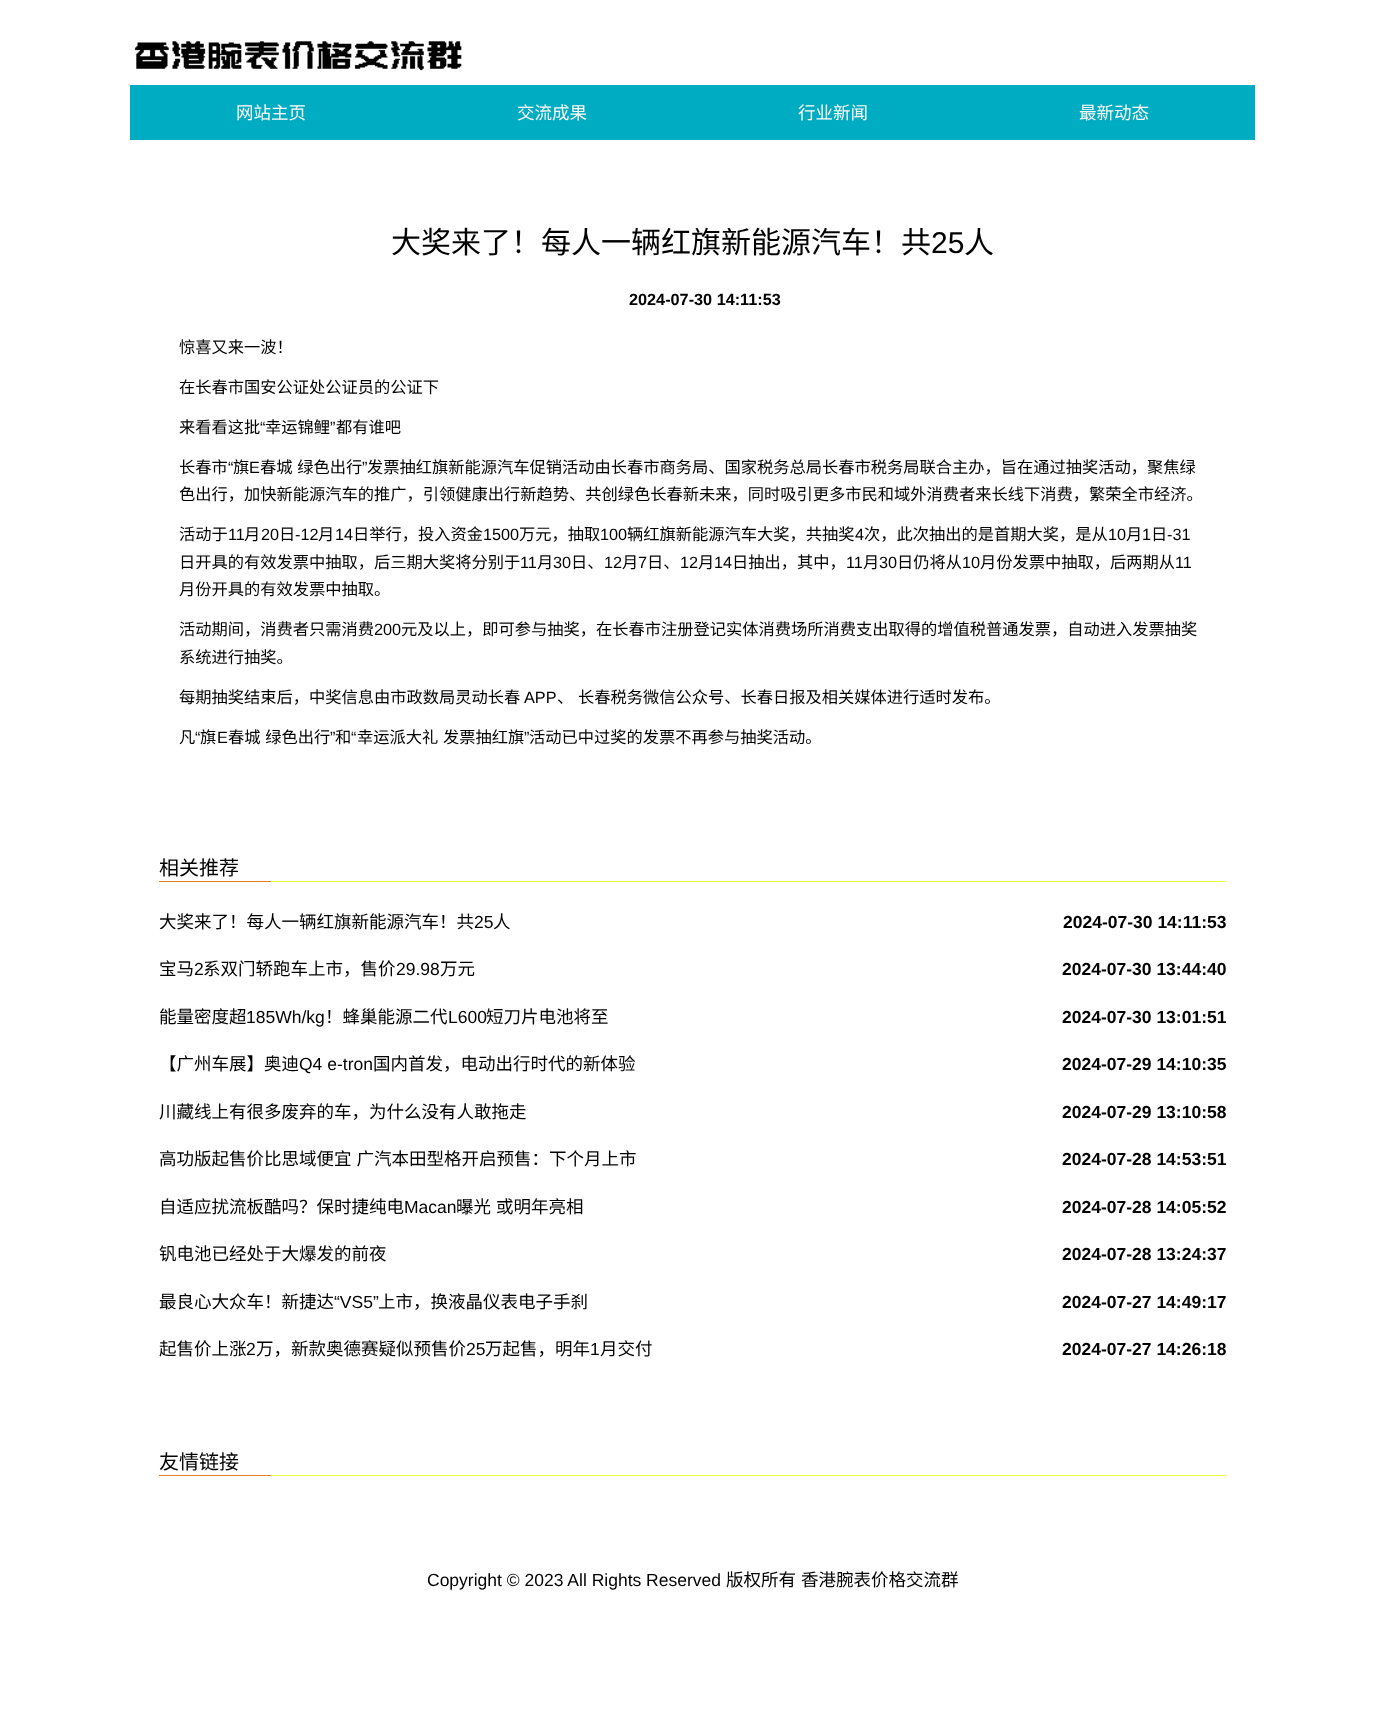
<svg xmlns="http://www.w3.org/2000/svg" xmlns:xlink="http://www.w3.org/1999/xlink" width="1384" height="1718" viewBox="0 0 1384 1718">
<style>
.cls-1{font:17.5px Noto Sans CJK SC;fill:#fffaf9}
.cls-2{font:30px Noto Sans CJK SC;fill:#000000}
.cls-3{font:30px Liberation Sans;fill:#000000}
.cls-4{font:bold 16.25px Liberation Sans;fill:#000000}
.cls-5{font:16.25px Noto Sans CJK SC;fill:#000000}
.cls-6{font:16.25px Liberation Sans;fill:#000000}
.cls-7{font:20px Noto Sans CJK SC;fill:#000000}
.cls-8{font:17.5px Noto Sans CJK SC;fill:#000000}
.cls-9{font:17.5px Liberation Sans;fill:#000000}
.cls-10{font:bold 17.5px Liberation Sans;fill:#000000}
</style>
<rect width="100%" height="100%" fill="#ffffff"/>
<image xlink:href="image0.png" x="134" y="41" width="328" height="30"/>
<rect fill="#00acc1" x="130" y="85" width="1125" height="55"/>
<rect fill="#eeff41" x="271" y="881" width="955" height="1"/>
<rect fill="#e67e22" x="159" y="881" width="112" height="1"/>
<rect fill="#eeff41" x="271" y="1475" width="955" height="1"/>
<rect fill="#e67e22" x="159" y="1475" width="112" height="1"/>
<text class="cls-1" x="236" y="119">网站主页</text>
<text class="cls-1" x="517" y="119">交流成果</text>
<text class="cls-1" x="798" y="119">行业新闻</text>
<text class="cls-1" x="1079" y="119">最新动态</text>
<text class="cls-2" x="391" y="253">大奖来了！每人一辆红旗新能源汽车！共</text>
<text class="cls-3" x="931" y="253">25</text>
<text class="cls-2" x="964" y="253">人</text>
<text class="cls-4" x="629" y="305">2024-07-30 14:11:53</text>
<text class="cls-5" x="179" y="353">惊喜又来一波！</text>
<text class="cls-5" x="179" y="393">在长春市国安公证处公证员的公证下</text>
<text class="cls-5" x="179" y="433">来看看这批</text>
<text class="cls-6" x="260" y="433">“</text>
<text class="cls-5" x="265" y="433">幸运锦鲤</text>
<text class="cls-6" x="330" y="433">”</text>
<text class="cls-5" x="336" y="433">都有谁吧</text>
<text class="cls-5" x="179" y="473">长春市</text>
<text class="cls-6" x="228" y="473">“</text>
<text class="cls-5" x="233" y="473">旗</text>
<text class="cls-6" x="249" y="473">E</text>
<text class="cls-5" x="260" y="473" word-spacing="1">春城 绿色出行</text>
<text class="cls-6" x="362" y="473">”</text>
<text class="cls-5" x="367" y="473">发票抽红旗新能源汽车促销活动由长春市商务局、国家税务总局长春市税务局联合主办，旨在通过抽奖活动，聚焦绿</text>
<text class="cls-5" x="179" y="500">色出行，加快新能源汽车的推广，引领健康出行新趋势、共创绿色长春新未来，同时吸引更多市民和域外消费者来长线下消费，繁荣全市经济。</text>
<text class="cls-5" x="179" y="540">活动于</text>
<text class="cls-6" x="228" y="540">11</text>
<text class="cls-5" x="244" y="540">月</text>
<text class="cls-6" x="261" y="540">20</text>
<text class="cls-5" x="279" y="540">日</text>
<text class="cls-6" x="295" y="540">-12</text>
<text class="cls-5" x="318" y="540">月</text>
<text class="cls-6" x="335" y="540">14</text>
<text class="cls-5" x="353" y="540">日举行，投入资金</text>
<text class="cls-6" x="483" y="540">1500</text>
<text class="cls-5" x="519" y="540">万元，抽取</text>
<text class="cls-6" x="600" y="540">100</text>
<text class="cls-5" x="627" y="540">辆红旗新能源汽车大奖，共抽奖</text>
<text class="cls-6" x="855" y="540">4</text>
<text class="cls-5" x="864" y="540">次，此次抽出的是首期大奖，是从</text>
<text class="cls-6" x="1108" y="540">10</text>
<text class="cls-5" x="1126" y="540">月</text>
<text class="cls-6" x="1142" y="540">1</text>
<text class="cls-5" x="1151" y="540">日</text>
<text class="cls-6" x="1167" y="540">-31</text>
<text class="cls-5" x="179" y="568">日开具的有效发票中抽取，后三期大奖将分别于</text>
<text class="cls-6" x="520" y="568">11</text>
<text class="cls-5" x="537" y="568">月</text>
<text class="cls-6" x="553" y="568">30</text>
<text class="cls-5" x="571" y="568">日、</text>
<text class="cls-6" x="604" y="568">12</text>
<text class="cls-5" x="622" y="568">月</text>
<text class="cls-6" x="638" y="568">7</text>
<text class="cls-5" x="647" y="568">日、</text>
<text class="cls-6" x="680" y="568">12</text>
<text class="cls-5" x="698" y="568">月</text>
<text class="cls-6" x="714" y="568">14</text>
<text class="cls-5" x="732" y="568">日抽出，其中，</text>
<text class="cls-6" x="846" y="568">11</text>
<text class="cls-5" x="863" y="568">月</text>
<text class="cls-6" x="879" y="568">30</text>
<text class="cls-5" x="897" y="568">日仍将从</text>
<text class="cls-6" x="962" y="568">10</text>
<text class="cls-5" x="980" y="568">月份发票中抽取，后两期从</text>
<text class="cls-6" x="1175" y="568">11</text>
<text class="cls-5" x="179" y="595">月份开具的有效发票中抽取。</text>
<text class="cls-5" x="179" y="635">活动期间，消费者只需消费</text>
<text class="cls-6" x="374" y="635">200</text>
<text class="cls-5" x="401" y="635">元及以上，即可参与抽奖，在长春市注册登记实体消费场所消费支出取得的增值税普通发票，自动进入发票抽奖</text>
<text class="cls-5" x="179" y="663">系统进行抽奖。</text>
<text class="cls-5" x="179" y="703">每期抽奖结束后，中奖信息由市政数局灵动长春</text>
<text class="cls-6" x="524" y="703">APP</text>
<text class="cls-5" x="557" y="703" word-spacing="1">、 长春税务微信公众号、长春日报及相关媒体进行适时发布。</text>
<text class="cls-5" x="179" y="743">凡</text>
<text class="cls-6" x="195" y="743">“</text>
<text class="cls-5" x="200" y="743">旗</text>
<text class="cls-6" x="217" y="743">E</text>
<text class="cls-5" x="228" y="743" word-spacing="1">春城 绿色出行</text>
<text class="cls-6" x="330" y="743">”</text>
<text class="cls-5" x="335" y="743">和</text>
<text class="cls-6" x="351" y="743">“</text>
<text class="cls-5" x="357" y="743" word-spacing="1">幸运派大礼 发票抽红旗</text>
<text class="cls-6" x="524" y="743">”</text>
<text class="cls-5" x="529" y="743">活动已中过奖的发票不再参与抽奖活动。</text>
<text class="cls-7" x="159" y="875">相关推荐</text>
<text class="cls-8" x="159" y="928">大奖来了！每人一辆红旗新能源汽车！共</text>
<text class="cls-9" x="474" y="928">25</text>
<text class="cls-8" x="493" y="928">人</text>
<text class="cls-10" x="1063" y="928">2024-07-30 14:11:53</text>
<text class="cls-8" x="159" y="975">宝马</text>
<text class="cls-9" x="194" y="975">2</text>
<text class="cls-8" x="203" y="975">系双门轿跑车上市，售价</text>
<text class="cls-9" x="396" y="975">29.98</text>
<text class="cls-8" x="440" y="975">万元</text>
<text class="cls-10" x="1062" y="975">2024-07-30 13:44:40</text>
<text class="cls-8" x="159" y="1023">能量密度超</text>
<text class="cls-9" x="246" y="1023">185Wh/kg</text>
<text class="cls-8" x="325" y="1023">！蜂巢能源二代</text>
<text class="cls-9" x="448" y="1023">L600</text>
<text class="cls-8" x="486" y="1023">短刀片电池将至</text>
<text class="cls-10" x="1062" y="1023">2024-07-30 13:01:51</text>
<text class="cls-8" x="159" y="1070">【广州车展】奥迪</text>
<text class="cls-9" x="299" y="1070">Q4 e-tron</text>
<text class="cls-8" x="373" y="1070">国内首发，电动出行时代的新体验</text>
<text class="cls-10" x="1062" y="1070">2024-07-29 14:10:35</text>
<text class="cls-8" x="159" y="1118">川藏线上有很多废弃的车，为什么没有人敢拖走</text>
<text class="cls-10" x="1062" y="1118">2024-07-29 13:10:58</text>
<text class="cls-8" x="159" y="1165" word-spacing="1">高功版起售价比思域便宜 广汽本田型格开启预售：下个月上市</text>
<text class="cls-10" x="1062" y="1165">2024-07-28 14:53:51</text>
<text class="cls-8" x="159" y="1213">自适应扰流板酷吗？保时捷纯电</text>
<text class="cls-9" x="404" y="1213">Macan</text>
<text class="cls-8" x="456" y="1213" word-spacing="1">曝光 或明年亮相</text>
<text class="cls-10" x="1062" y="1213">2024-07-28 14:05:52</text>
<text class="cls-8" x="159" y="1260">钒电池已经处于大爆发的前夜</text>
<text class="cls-10" x="1062" y="1260">2024-07-28 13:24:37</text>
<text class="cls-8" x="159" y="1308">最良心大众车！新捷达</text>
<text class="cls-9" x="334" y="1308">“VS5”</text>
<text class="cls-8" x="378" y="1308">上市，换液晶仪表电子手刹</text>
<text class="cls-10" x="1062" y="1308">2024-07-27 14:49:17</text>
<text class="cls-8" x="159" y="1355">起售价上涨</text>
<text class="cls-9" x="246" y="1355">2</text>
<text class="cls-8" x="256" y="1355">万，新款奥德赛疑似预售价</text>
<text class="cls-9" x="466" y="1355">25</text>
<text class="cls-8" x="485" y="1355">万起售，明年</text>
<text class="cls-9" x="590" y="1355">1</text>
<text class="cls-8" x="600" y="1355">月交付</text>
<text class="cls-10" x="1062" y="1355">2024-07-27 14:26:18</text>
<text class="cls-7" x="159" y="1469">友情链接</text>
<text class="cls-9" x="427" y="1586">Copyright © 2023 All Rights Reserved</text>
<text class="cls-8" x="726" y="1586">版权所有</text>
<text class="cls-8" x="801" y="1586">香港腕表价格交流群</text>
</svg>
